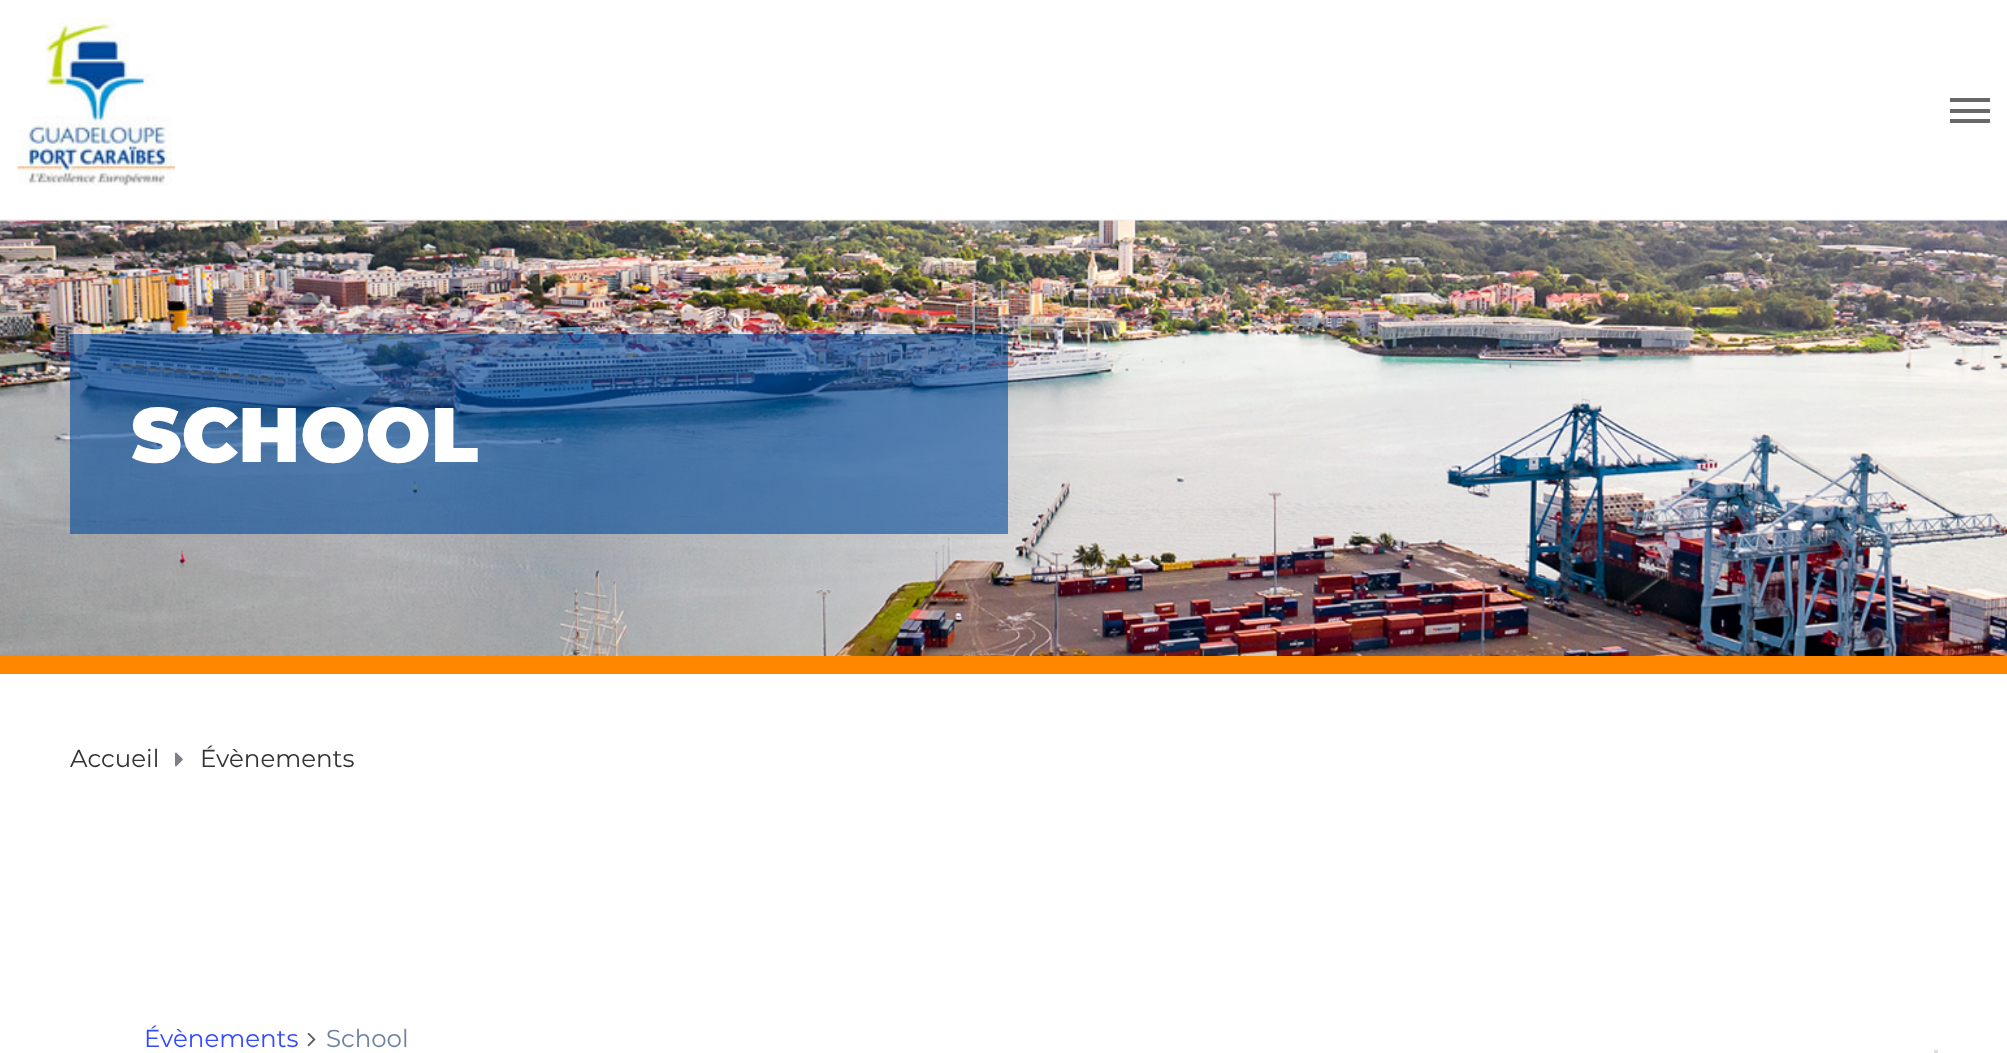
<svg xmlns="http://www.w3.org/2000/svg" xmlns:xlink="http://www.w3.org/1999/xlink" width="2007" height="1053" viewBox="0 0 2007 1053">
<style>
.cls-1{font:900 77px Montserrat;fill:#ffffff}
.cls-2{font:24.5px Montserrat;fill:#333333}
.cls-3{font:24.5px Montserrat;fill:#334aff}
.cls-4{font:24.5px Montserrat;fill:#6c83a2}
</style>
<rect width="100%" height="100%" fill="#ffffff"/>
<rect fill="#f5f5f5" x="0" y="219" width="2007" height="2"/>
<image xlink:href="image0.png" x="17" y="17" width="158" height="169"/>
<rect fill="#686868" x="1950" y="98" width="40" height="4"/>
<rect fill="#686868" x="1950" y="109" width="40" height="4"/>
<rect fill="#686868" x="1950" y="119" width="40" height="4"/>
<image xlink:href="image1.png" x="0" y="220" width="2007" height="436"/>
<rect fill="#ff8700" x="0" y="656" width="2007" height="18"/>
<rect fill="#01499b" fill-opacity="0.6" x="70" y="334" width="938" height="200"/>
<image xlink:href="image2.png" x="175" y="752" width="8" height="15"/>
<image xlink:href="image3.png" x="307" y="1033" width="9" height="14"/>
<rect fill="#e0e0e0" x="1934" y="1050" width="4" height="3"/>
<text class="cls-1" x="131" y="462">SCHOOL</text>
<text class="cls-2" x="70" y="767">Accueil</text>
<text class="cls-2" x="200" y="767">Évènements</text>
<text class="cls-3" x="144" y="1047">Évènements</text>
<text class="cls-4" x="326" y="1047">School</text>
</svg>
